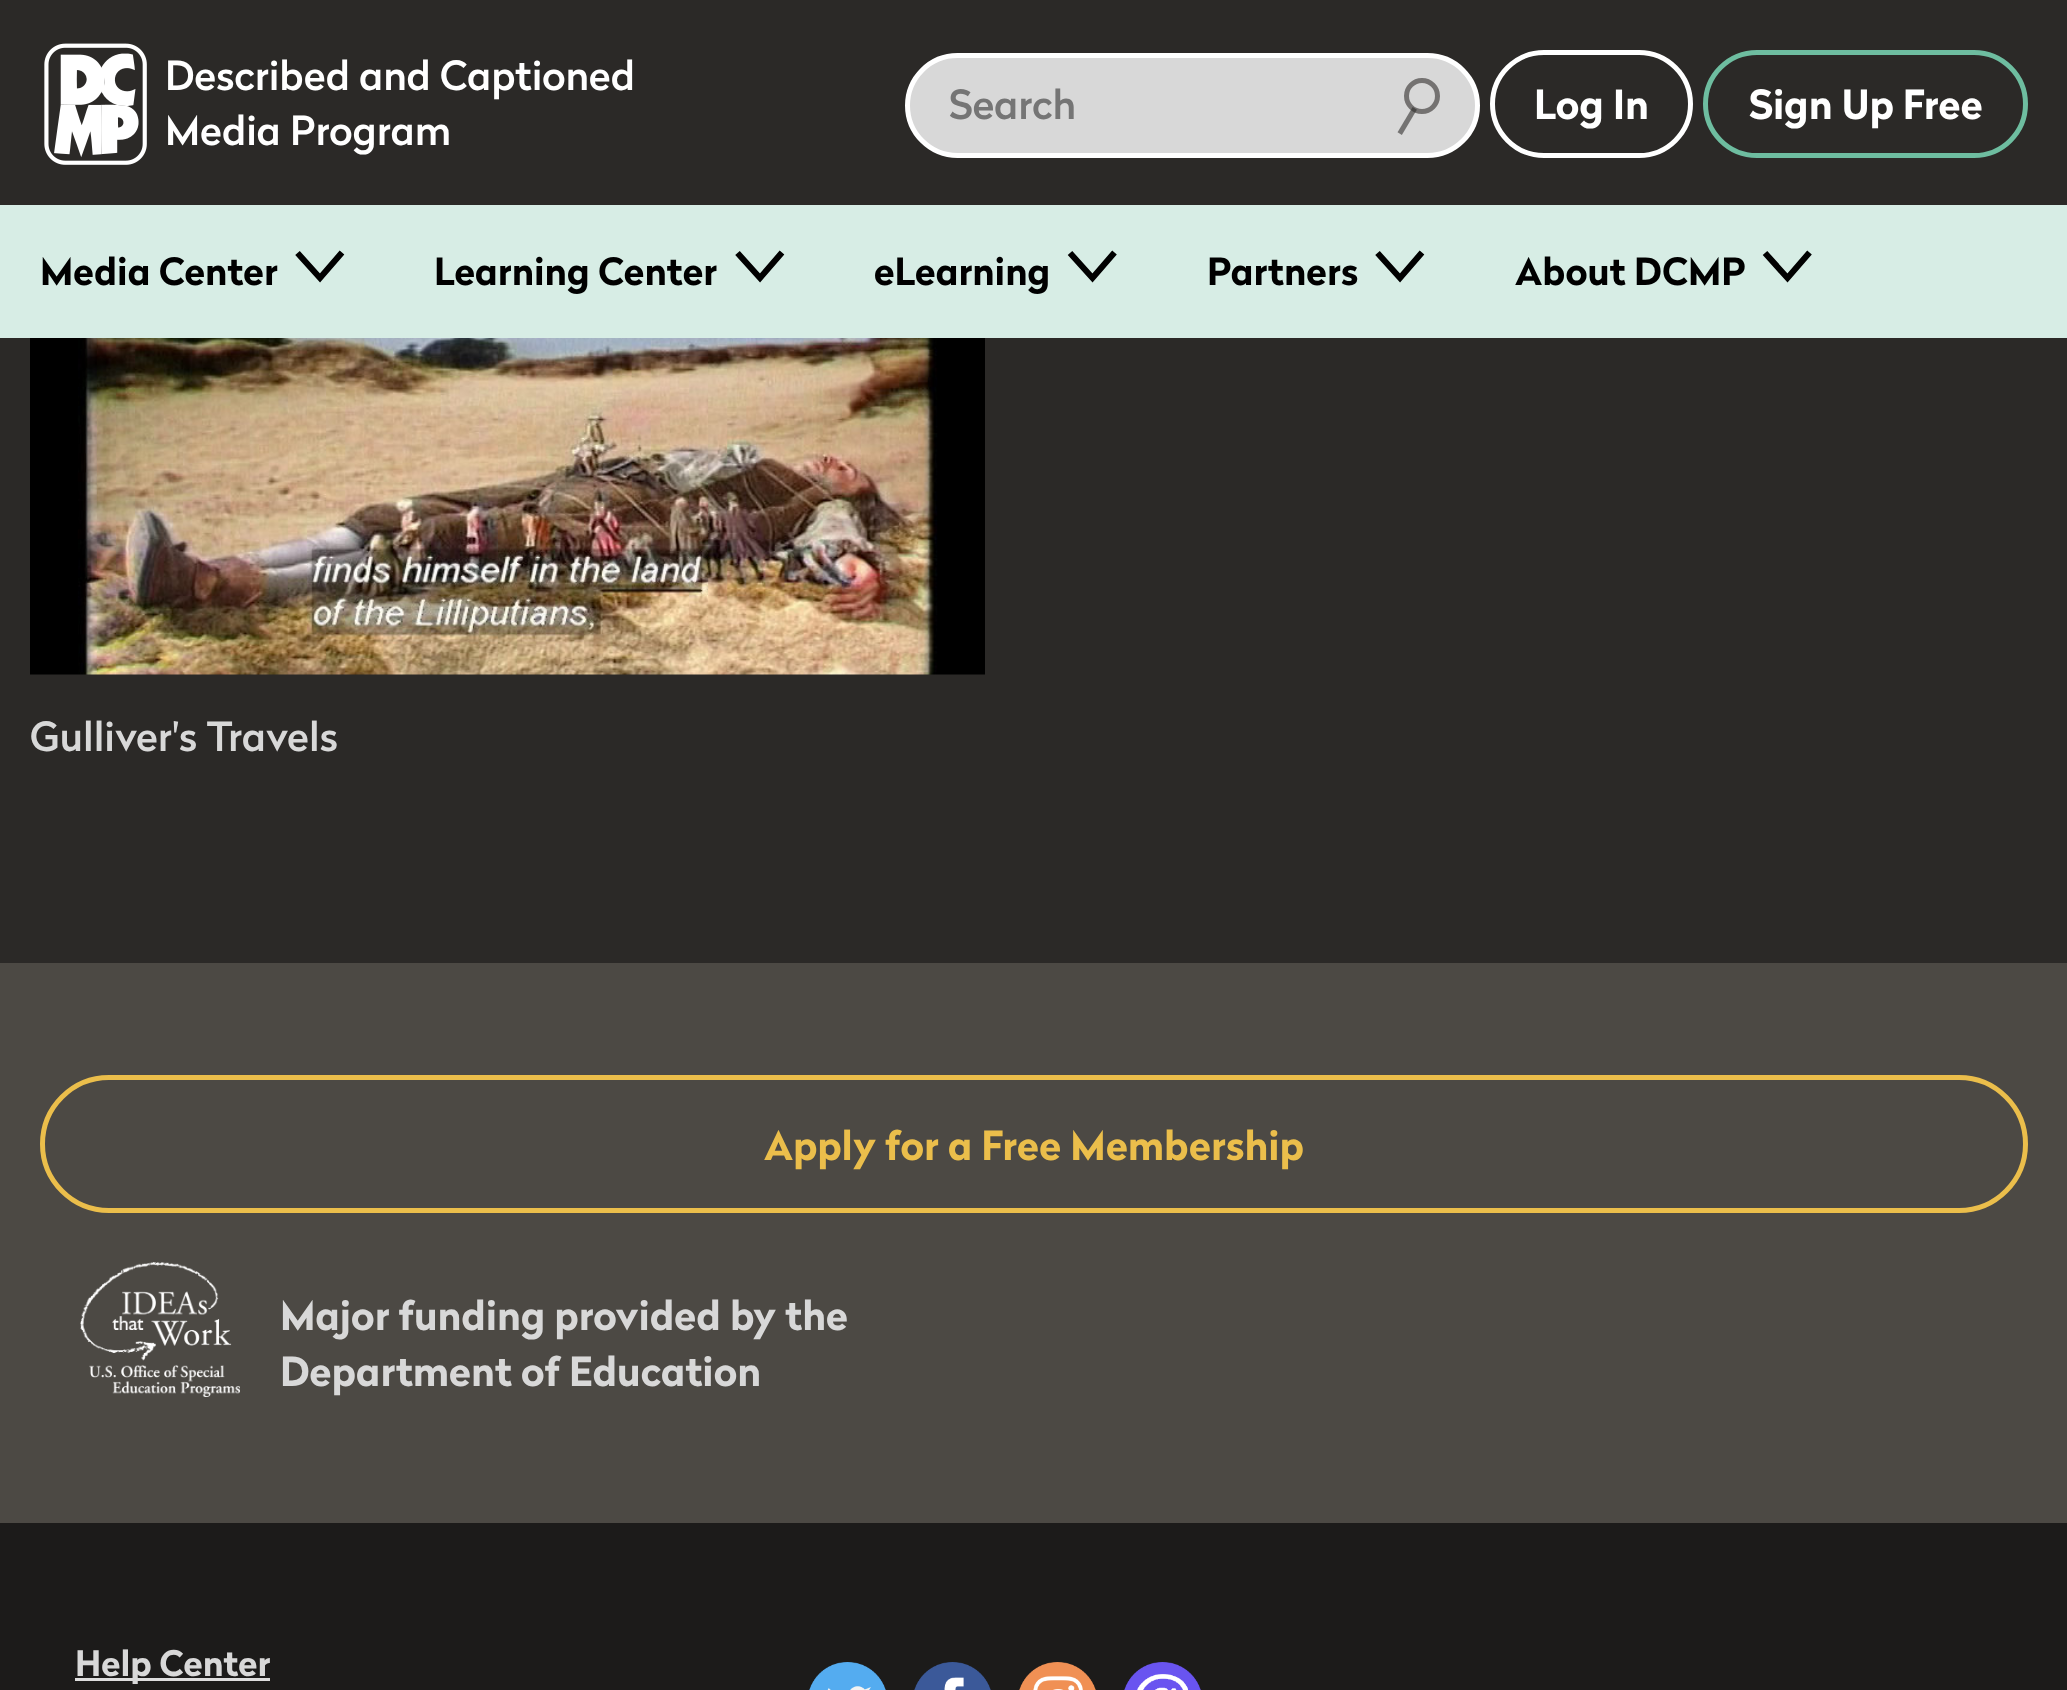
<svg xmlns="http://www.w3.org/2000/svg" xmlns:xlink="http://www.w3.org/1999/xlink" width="2067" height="1690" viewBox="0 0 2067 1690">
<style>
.cls-1{font:500 40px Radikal;fill:#ffffff}
.cls-2{font:500 40px Radikal;fill:#757575}
.cls-3{font:bold 40px Radikal;fill:#ffffff}
.cls-4{font:bold 37.5px Radikal;fill:#000000}
.cls-5{font:500 40px Radikal;fill:#d8d8d8}
.cls-6{font:bold 40px Radikal;fill:#ebbe4b}
.cls-7{font:bold 40px Radikal;fill:#d8d8d8}
.cls-8{font:bold 35px Radikal;fill:#d8d8d8}
</style>
<rect width="100%" height="100%" fill="#2b2927"/>
<image xlink:href="image0.png" x="44" y="43" width="103" height="122"/>
<rect fill="#d8d8d8" stroke="#ffffff" stroke-width="5" x="907.5" y="55.5" width="570" height="100" rx="50"/>
<circle fill="none" stroke="#747271" stroke-width="5" cx="1422" cy="96" r="15.5"/>
<path fill="none" stroke="#2b2927" stroke-opacity="0.58" stroke-width="5" stroke-linecap="square" d="M1413.5 110.5L1401 131.5"/>
<rect fill="none" stroke="#ffffff" stroke-width="5" x="1492.5" y="52.5" width="198" height="103" rx="51.5"/>
<rect fill="none" stroke="#6ebda0" stroke-width="5" x="1705.5" y="52.5" width="320" height="103" rx="51.5"/>
<rect fill="#d7ede5" x="0" y="205" width="2067" height="133"/>
<path fill="none" stroke="#010101" stroke-width="6.1" d="M297.5 253L320 278L342 252.5"/>
<path fill="none" stroke="#010101" stroke-width="6.1" d="M737.5 253L760 278L782 252.5"/>
<path fill="none" stroke="#010101" stroke-width="6.1" d="M1070 253L1092.5 278L1114.5 252.5"/>
<path fill="none" stroke="#010101" stroke-width="6.1" d="M1377.5 253L1400 278L1422 252.5"/>
<path fill="none" stroke="#010101" stroke-width="6.1" d="M1765 253L1787.5 278L1809.5 252.5"/>
<image xlink:href="image1.png" x="30" y="338" width="955" height="337"/>
<rect fill="#4c4944" x="0" y="963" width="2067" height="560"/>
<rect fill="none" stroke="#ebbe4b" stroke-width="5" x="42.5" y="1077.5" width="1983" height="133" rx="66.5"/>
<image xlink:href="image2.png" x="80" y="1262" width="160" height="135"/>
<rect fill="#1c1b1a" x="0" y="1523" width="2067" height="167"/>
<rect fill="#dddddd" x="75" y="1678" width="195" height="3"/>
<image xlink:href="image3.png" x="809" y="1662" width="77" height="28"/>
<image xlink:href="image4.png" x="914" y="1662" width="77" height="28"/>
<image xlink:href="image5.png" x="1019" y="1662" width="77" height="28"/>
<image xlink:href="image6.png" x="1124" y="1662" width="77" height="28"/>
<text class="cls-1"><tspan x="165" y="90">Described and Captioned</tspan><tspan x="165" y="145">Media Program</tspan></text>
<text class="cls-2" x="949" y="119">Search</text>
<text class="cls-3" x="1534" y="119">Log In</text>
<text class="cls-3" x="1749" y="119">Sign Up Free</text>
<text class="cls-4" x="40" y="285">Media Center</text>
<text class="cls-4" x="434" y="285">Learning Center</text>
<text class="cls-4" x="874" y="285">eLearning</text>
<text class="cls-4" x="1207" y="285">Partners</text>
<text class="cls-4" x="1515" y="285">About DCMP</text>
<text class="cls-5" x="30" y="751">Gulliver's Travels</text>
<text class="cls-6" x="764" y="1160">Apply for a Free Membership</text>
<text class="cls-7"><tspan x="280" y="1330">Major funding provided by the</tspan><tspan x="280" y="1386">Department of Education</tspan></text>
<text class="cls-8" x="75" y="1676">Help Center</text>
</svg>
